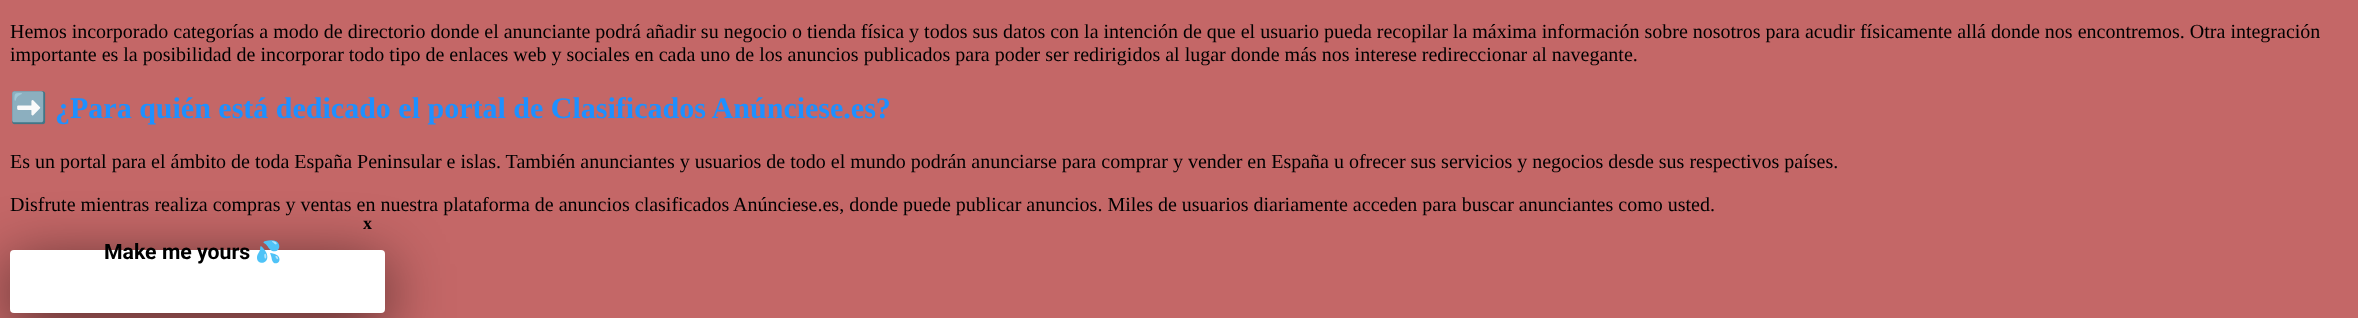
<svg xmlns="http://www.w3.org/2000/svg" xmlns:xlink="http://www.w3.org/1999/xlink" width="2358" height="318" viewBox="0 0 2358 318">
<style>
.cls-1{font:20px Liberation Serif;fill:#000000}
.cls-2{font:bold 30px Noto Color Emoji;fill:#1e90ff}
.cls-3{font:bold 30px Liberation Serif;fill:#1e90ff}
.cls-4{font:bold 18px Liberation Serif;fill:#000000}
.cls-5{font:bold 21.25px Roboto;fill:#000000}
.cls-6{font:bold 21.25px Noto Color Emoji;fill:#000000}
</style>
<rect width="100%" height="100%" fill="#c46767"/>
<rect fill="#000000" fill-opacity="0.6" filter="blur(31px)" x="10" y="263" width="375" height="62" rx="4"/>
<rect fill="#ffffff" x="10" y="250" width="375" height="63" rx="4"/>
<text class="cls-1"><tspan x="10" y="38">Hemos incorporado categorías a modo de directorio donde el anunciante podrá añadir su negocio o tienda física y todos sus datos con la intención de que el usuario pueda recopilar la máxima información sobre nosotros para acudir físicamente allá donde nos encontremos. Otra integración</tspan><tspan x="10" y="61">importante es la posibilidad de incorporar todo tipo de enlaces web y sociales en cada uno de los anuncios publicados para poder ser redirigidos al lugar donde más nos interese redireccionar al navegante.</tspan></text>
<text class="cls-2" x="10" y="118">➡️</text>
<text class="cls-3" x="55" y="118">¿Para quién está dedicado el portal de Clasificados Anúnciese.es?</text>
<text class="cls-1" x="10" y="168">Es un portal para el ámbito de toda España Peninsular e islas. También anunciantes y usuarios de todo el mundo podrán anunciarse para comprar y vender en España u ofrecer sus servicios y negocios desde sus respectivos países.</text>
<text class="cls-1" x="10" y="211">Disfrute mientras realiza compras y ventas en nuestra plataforma de anuncios clasificados Anúnciese.es, donde puede publicar anuncios. Miles de usuarios diariamente acceden para buscar anunciantes como usted.</text>
<text class="cls-4" x="363" y="229">x</text>
<text class="cls-5" x="104" y="259">Make me yours</text>
<text class="cls-6" x="255" y="259">💦</text>
</svg>
